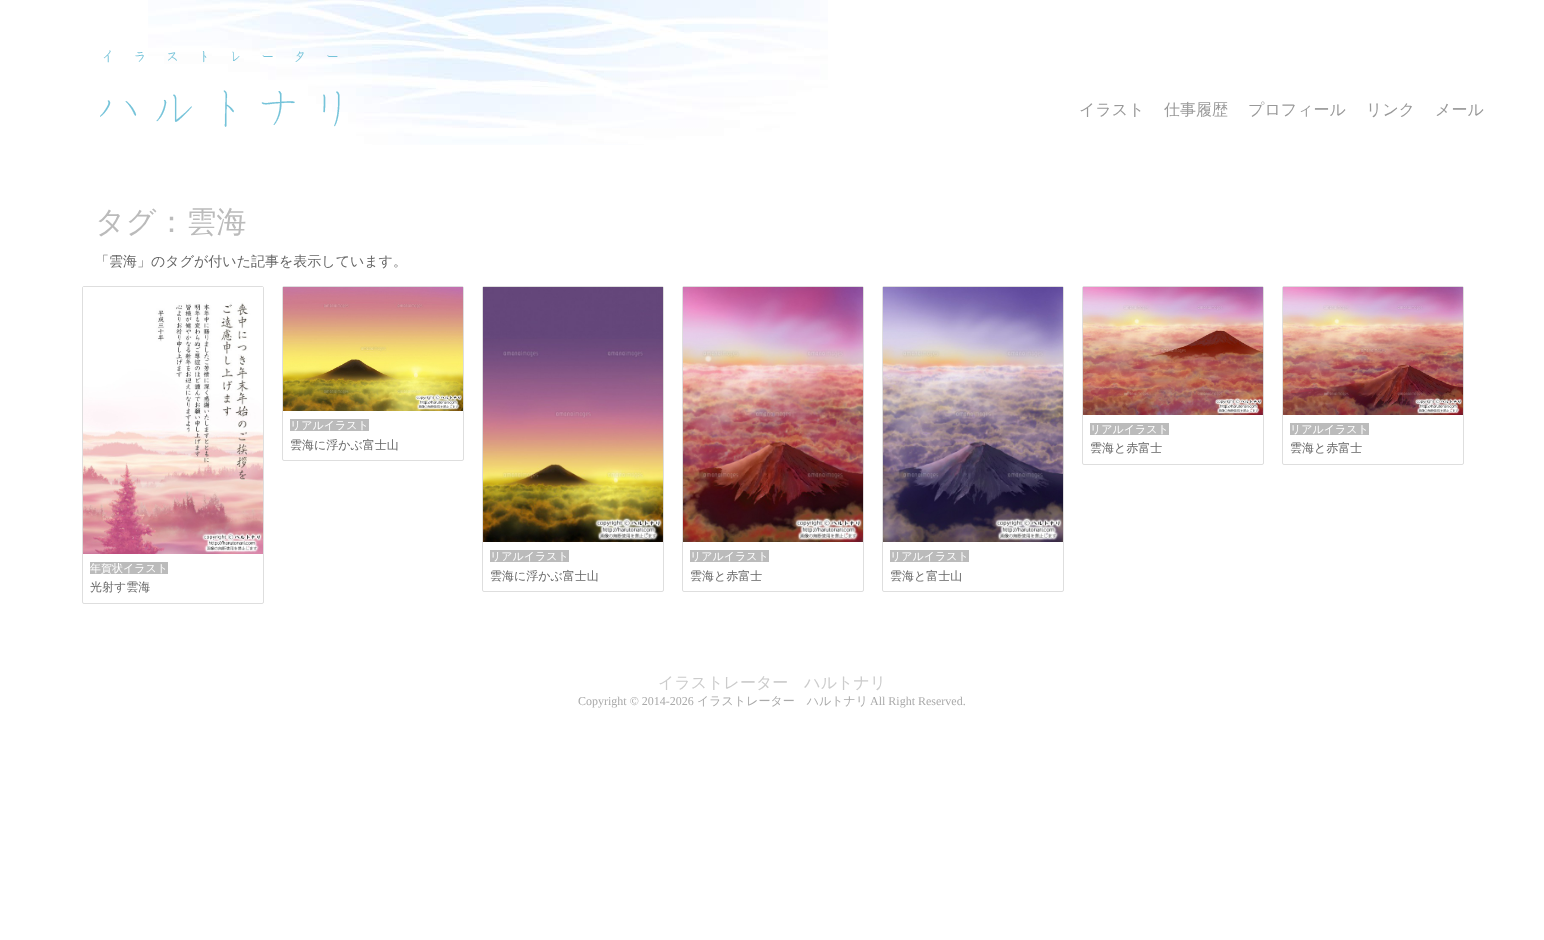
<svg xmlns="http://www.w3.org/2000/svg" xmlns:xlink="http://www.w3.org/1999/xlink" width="1544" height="940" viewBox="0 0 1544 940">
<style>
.cls-1{font:500 16px WenQuanYi Zen Hei;fill:#999999}
.cls-2{font:500 30px WenQuanYi Zen Hei;fill:#bbbbbb}
.cls-3{font:500 14px WenQuanYi Zen Hei;fill:#666666}
.cls-4{font:500 11px WenQuanYi Zen Hei;fill:#ffffff}
.cls-5{font:500 12px WenQuanYi Zen Hei;fill:#666666}
.cls-6{font:500 16px WenQuanYi Zen Hei;fill:#cccccc}
.cls-7{font:12px Liberation Serif;fill:#aaaaaa}
.cls-8{font:500 12px WenQuanYi Zen Hei;fill:#aaaaaa}
</style>
<rect width="100%" height="100%" fill="#ffffff"/>
<image xlink:href="image0.png" x="148" y="0" width="680" height="145"/>
<image xlink:href="image1.png" x="100" y="50" width="240" height="77"/>
<rect fill="none" stroke="#dedede" x="282.5" y="286.5" width="181" height="174" rx="1.5"/>
<image xlink:href="image2.png" x="283" y="287" width="180" height="124"/>
<rect fill="#bbbbbb" x="290" y="419" width="79" height="12"/>
<rect fill="none" stroke="#dedede" x="1082.5" y="286.5" width="181" height="178" rx="1.5"/>
<image xlink:href="image3.png" x="1083" y="287" width="180" height="128"/>
<rect fill="#bbbbbb" x="1090" y="423" width="79" height="12"/>
<rect fill="none" stroke="#dedede" x="1282.5" y="286.5" width="181" height="178" rx="1.5"/>
<image xlink:href="image4.png" x="1283" y="287" width="180" height="128"/>
<rect fill="#bbbbbb" x="1290" y="423" width="79" height="12"/>
<rect fill="none" stroke="#dedede" x="82.5" y="286.5" width="181" height="317" rx="1.5"/>
<image xlink:href="image5.png" x="83" y="287" width="180" height="267"/>
<rect fill="#bbbbbb" x="90" y="562" width="78" height="12"/>
<rect fill="none" stroke="#dedede" x="482.5" y="286.5" width="181" height="305" rx="1.5"/>
<image xlink:href="image6.png" x="483" y="287" width="180" height="255"/>
<rect fill="#bbbbbb" x="490" y="550" width="79" height="12"/>
<rect fill="none" stroke="#dedede" x="682.5" y="286.5" width="181" height="305" rx="1.5"/>
<image xlink:href="image7.png" x="683" y="287" width="180" height="255"/>
<rect fill="#bbbbbb" x="690" y="550" width="79" height="12"/>
<rect fill="none" stroke="#dedede" x="882.5" y="286.5" width="181" height="305" rx="1.5"/>
<image xlink:href="image8.png" x="883" y="287" width="180" height="255"/>
<rect fill="#bbbbbb" x="890" y="550" width="79" height="12"/>
<text class="cls-1" x="1079" y="115">イラスト</text>
<text class="cls-1" x="1164" y="115">仕事履歴</text>
<text class="cls-1" x="1248" y="115">プロフィール</text>
<text class="cls-1" x="1366" y="115">リンク</text>
<text class="cls-1" x="1435" y="115">メール</text>
<text class="cls-2" x="95" y="232">タグ：雲海</text>
<text class="cls-3" x="95" y="266">「雲海」のタグが付いた記事を表示しています。</text>
<text class="cls-4" x="290" y="429">リアルイラスト</text>
<text class="cls-5" x="290" y="449">雲海に浮かぶ富士山</text>
<text class="cls-4" x="1090" y="433">リアルイラスト</text>
<text class="cls-5" x="1090" y="452">雲海と赤富士</text>
<text class="cls-4" x="1290" y="433">リアルイラスト</text>
<text class="cls-5" x="1290" y="452">雲海と赤富士</text>
<text class="cls-4" x="90" y="572">年賀状イラスト</text>
<text class="cls-5" x="90" y="591">光射す雲海</text>
<text class="cls-4" x="490" y="560">リアルイラスト</text>
<text class="cls-5" x="490" y="580">雲海に浮かぶ富士山</text>
<text class="cls-4" x="690" y="560">リアルイラスト</text>
<text class="cls-5" x="690" y="580">雲海と赤富士</text>
<text class="cls-4" x="890" y="560">リアルイラスト</text>
<text class="cls-5" x="890" y="580">雲海と富士山</text>
<text class="cls-6" x="658" y="688">イラストレーター　ハルトナリ</text>
<text class="cls-7" x="578" y="705">Copyright © 2014-2026</text>
<text class="cls-8" x="697" y="705">イラストレーター　ハルトナリ</text>
<text class="cls-7" x="870" y="705">All Right Reserved.</text>
</svg>
